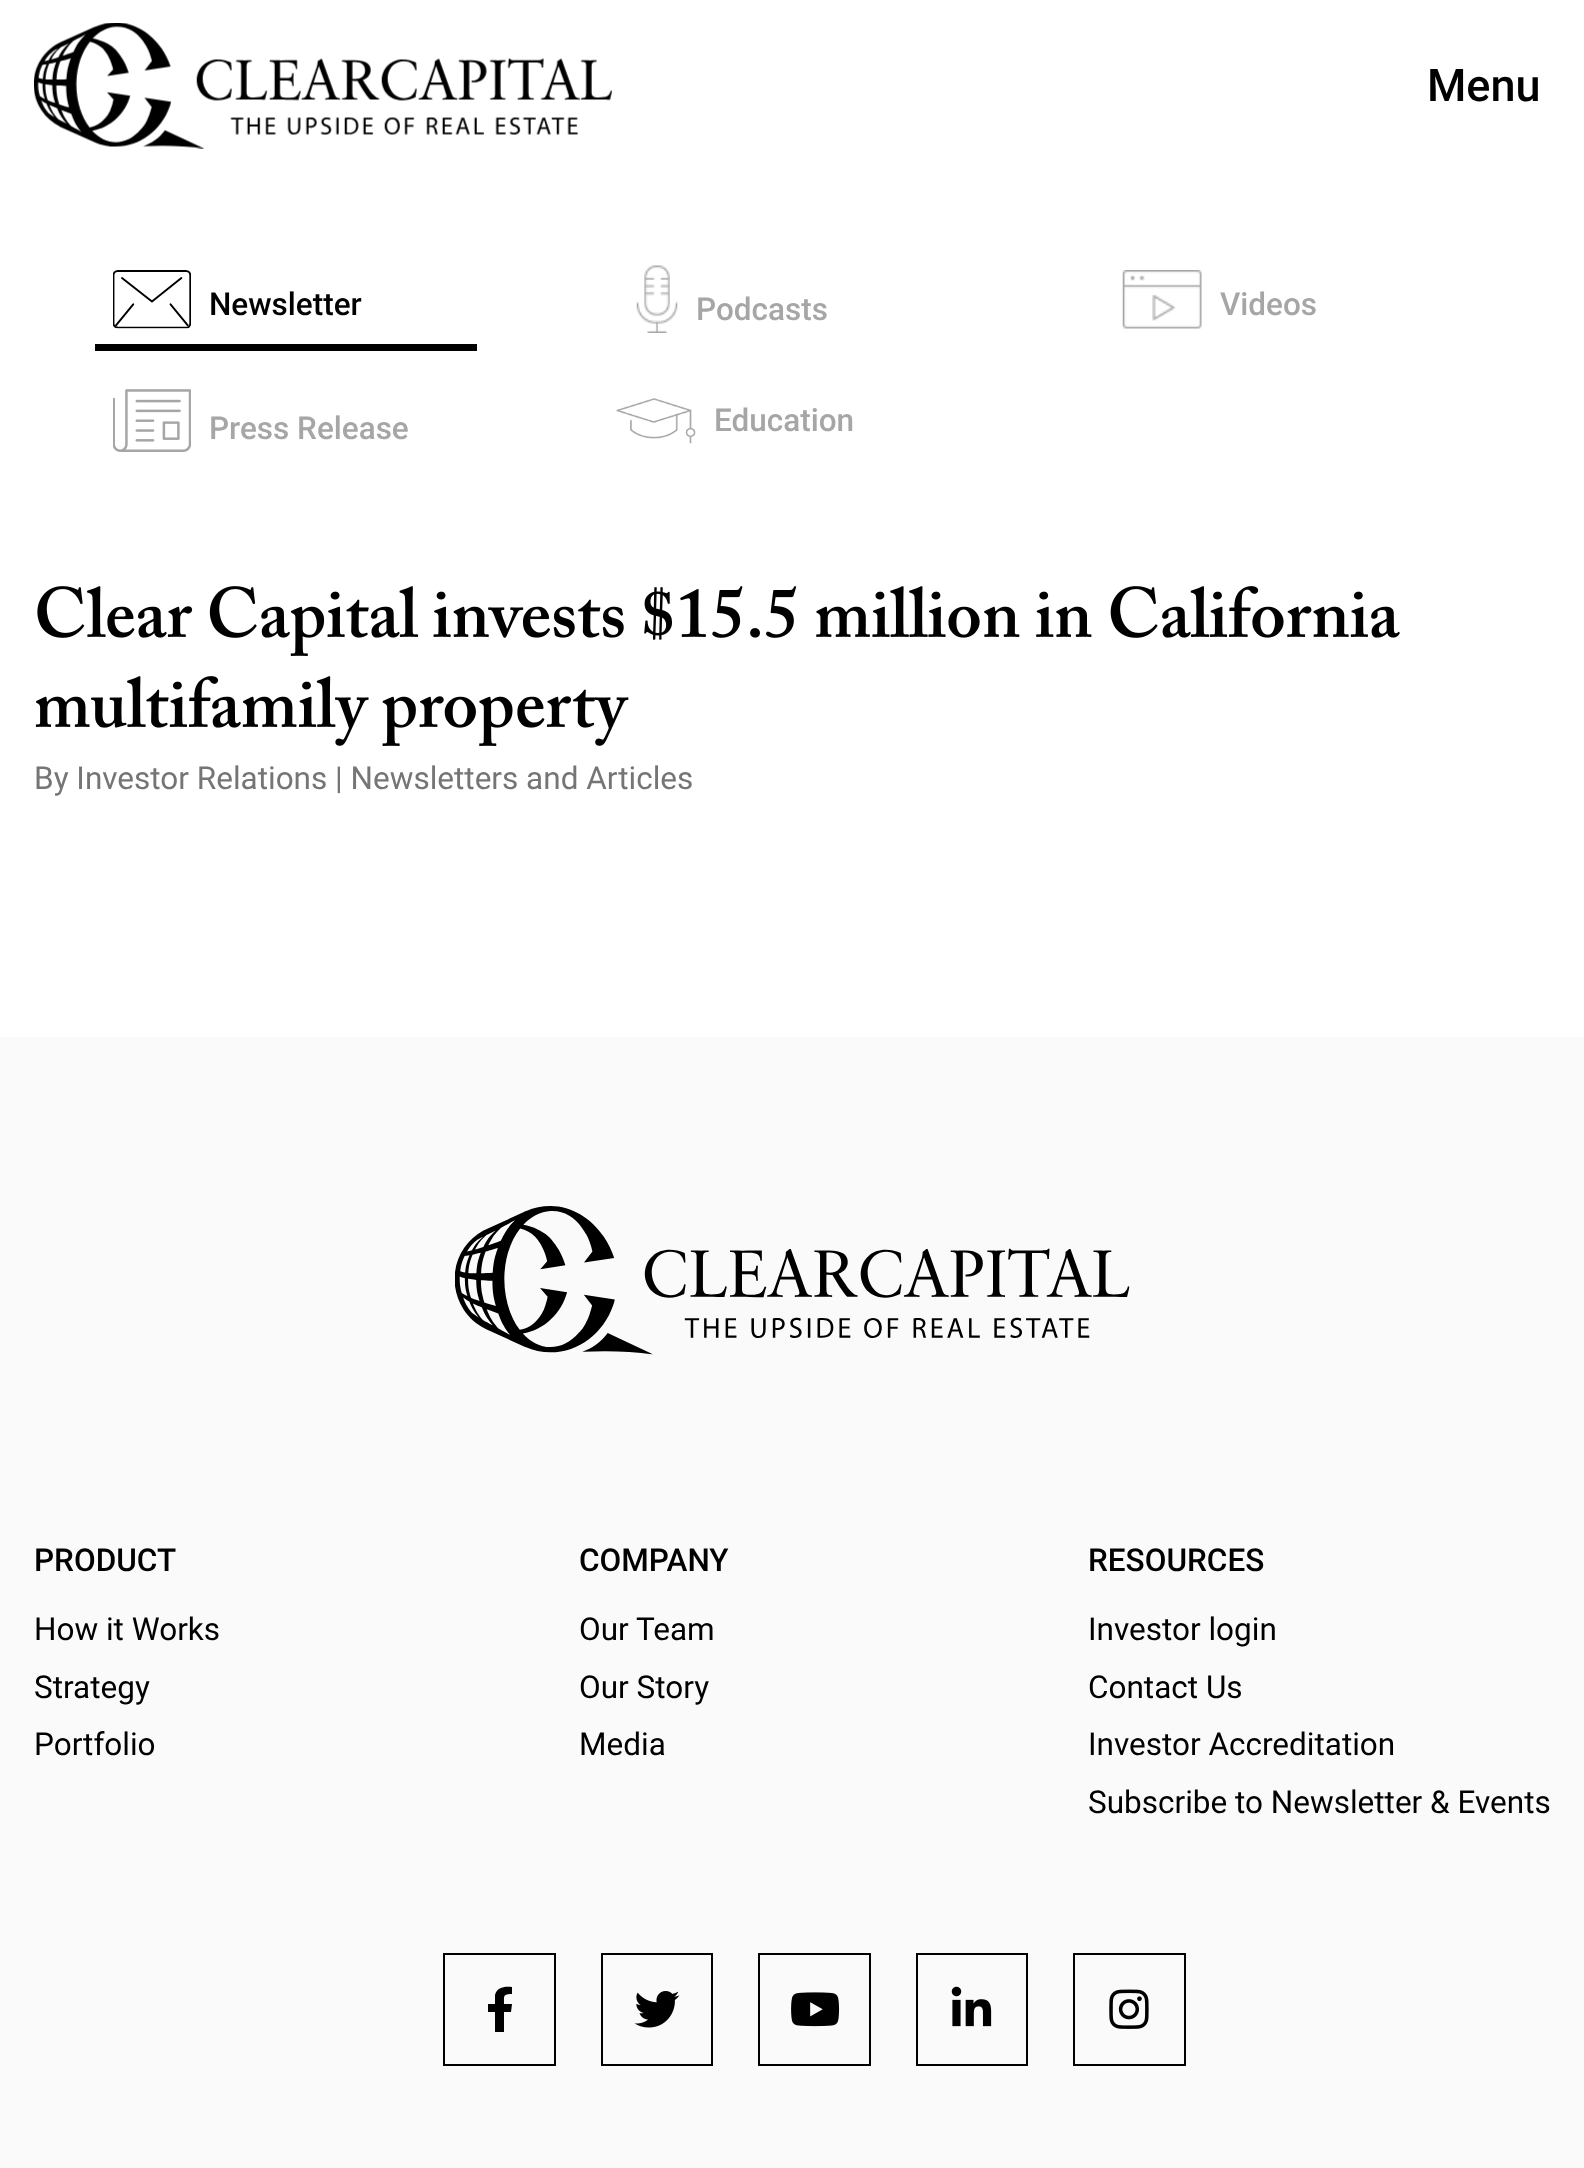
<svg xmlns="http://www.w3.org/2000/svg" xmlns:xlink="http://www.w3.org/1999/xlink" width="1584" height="2168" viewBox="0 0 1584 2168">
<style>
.cls-1{font:500 45px Roboto;fill:#000000}
.cls-2{font:500 31.5px Roboto;fill:#000000}
.cls-3{font:500 31.5px Roboto;fill:#a6a6a6}
.cls-4{font:31.5px Roboto;fill:#757575}
.cls-5{font:31.5px Roboto;fill:#000000}
</style>
<rect width="100%" height="100%" fill="#ffffff"/>
<image xlink:href="image0.png" x="34" y="23" width="578" height="126"/>
<image xlink:href="image1.png" x="113" y="270" width="78" height="59"/>
<rect fill="#000000" x="95" y="344" width="382" height="7"/>
<image xlink:href="image2.png" x="636" y="265" width="42" height="68"/>
<image xlink:href="image3.png" x="1122" y="270" width="80" height="59"/>
<image xlink:href="image4.png" x="113" y="389" width="78" height="63"/>
<image xlink:href="image5.png" x="616" y="398" width="80" height="46"/>
<image xlink:href="image6.png" x="37" y="586" width="1363" height="70"/>
<image xlink:href="image7.png" x="35" y="676" width="594" height="70"/>
<rect fill="#fafafa" x="0" y="1037" width="1584" height="1131"/>
<image xlink:href="image8.png" x="455" y="1206" width="675" height="149"/>
<rect fill="none" stroke="#000000" stroke-width="2" x="444" y="1954" width="111" height="111"/>
<path fill="#000000" d="M511 2012L512 2004H504C504 1996 503 1994 512 1994V1987C505 1986 497 1987 495 1995V2004H488V2012H495V2032H504V2012Z"/>
<rect fill="none" stroke="#000000" stroke-width="2" x="602" y="1954" width="110" height="111"/>
<image xlink:href="image9.png" x="634" y="1991" width="46" height="37"/>
<rect fill="none" stroke="#000000" stroke-width="2" x="759" y="1954" width="111" height="111"/>
<image xlink:href="image10.png" x="791" y="1992" width="49" height="35"/>
<rect fill="none" stroke="#000000" stroke-width="2" x="917" y="1954" width="110" height="111"/>
<image xlink:href="image11.png" x="951" y="1986" width="41" height="41"/>
<rect fill="none" stroke="#000000" stroke-width="2" x="1074" y="1954" width="111" height="111"/>
<image xlink:href="image12.png" x="1109" y="1989" width="40" height="40"/>
<text class="cls-1" x="1427" y="101">Menu</text>
<text class="cls-2" x="209" y="315">Newsletter</text>
<text class="cls-3" x="696" y="320">Podcasts</text>
<text class="cls-3" x="1220" y="315">Videos</text>
<text class="cls-3" x="209" y="439">Press Release</text>
<text class="cls-3" x="714" y="431">Education</text>
<text class="cls-4" x="34" y="789">By Investor Relations | Newsletters and Articles</text>
<text class="cls-2" x="34" y="1571">PRODUCT</text>
<text class="cls-5"><tspan x="34" y="1640">How it Works</tspan><tspan x="34" y="1698">Strategy</tspan><tspan x="34" y="1755">Portfolio</tspan></text>
<text class="cls-2" x="579" y="1571">COMPANY</text>
<text class="cls-5"><tspan x="579" y="1640">Our Team</tspan><tspan x="579" y="1698">Our Story</tspan><tspan x="579" y="1755">Media</tspan></text>
<text class="cls-2" x="1088" y="1571">RESOURCES</text>
<text class="cls-5"><tspan x="1088" y="1640">Investor login</tspan><tspan x="1088" y="1698">Contact Us</tspan><tspan x="1088" y="1755">Investor Accreditation</tspan><tspan x="1088" y="1813">Subscribe to Newsletter &amp; Events</tspan></text>
</svg>
